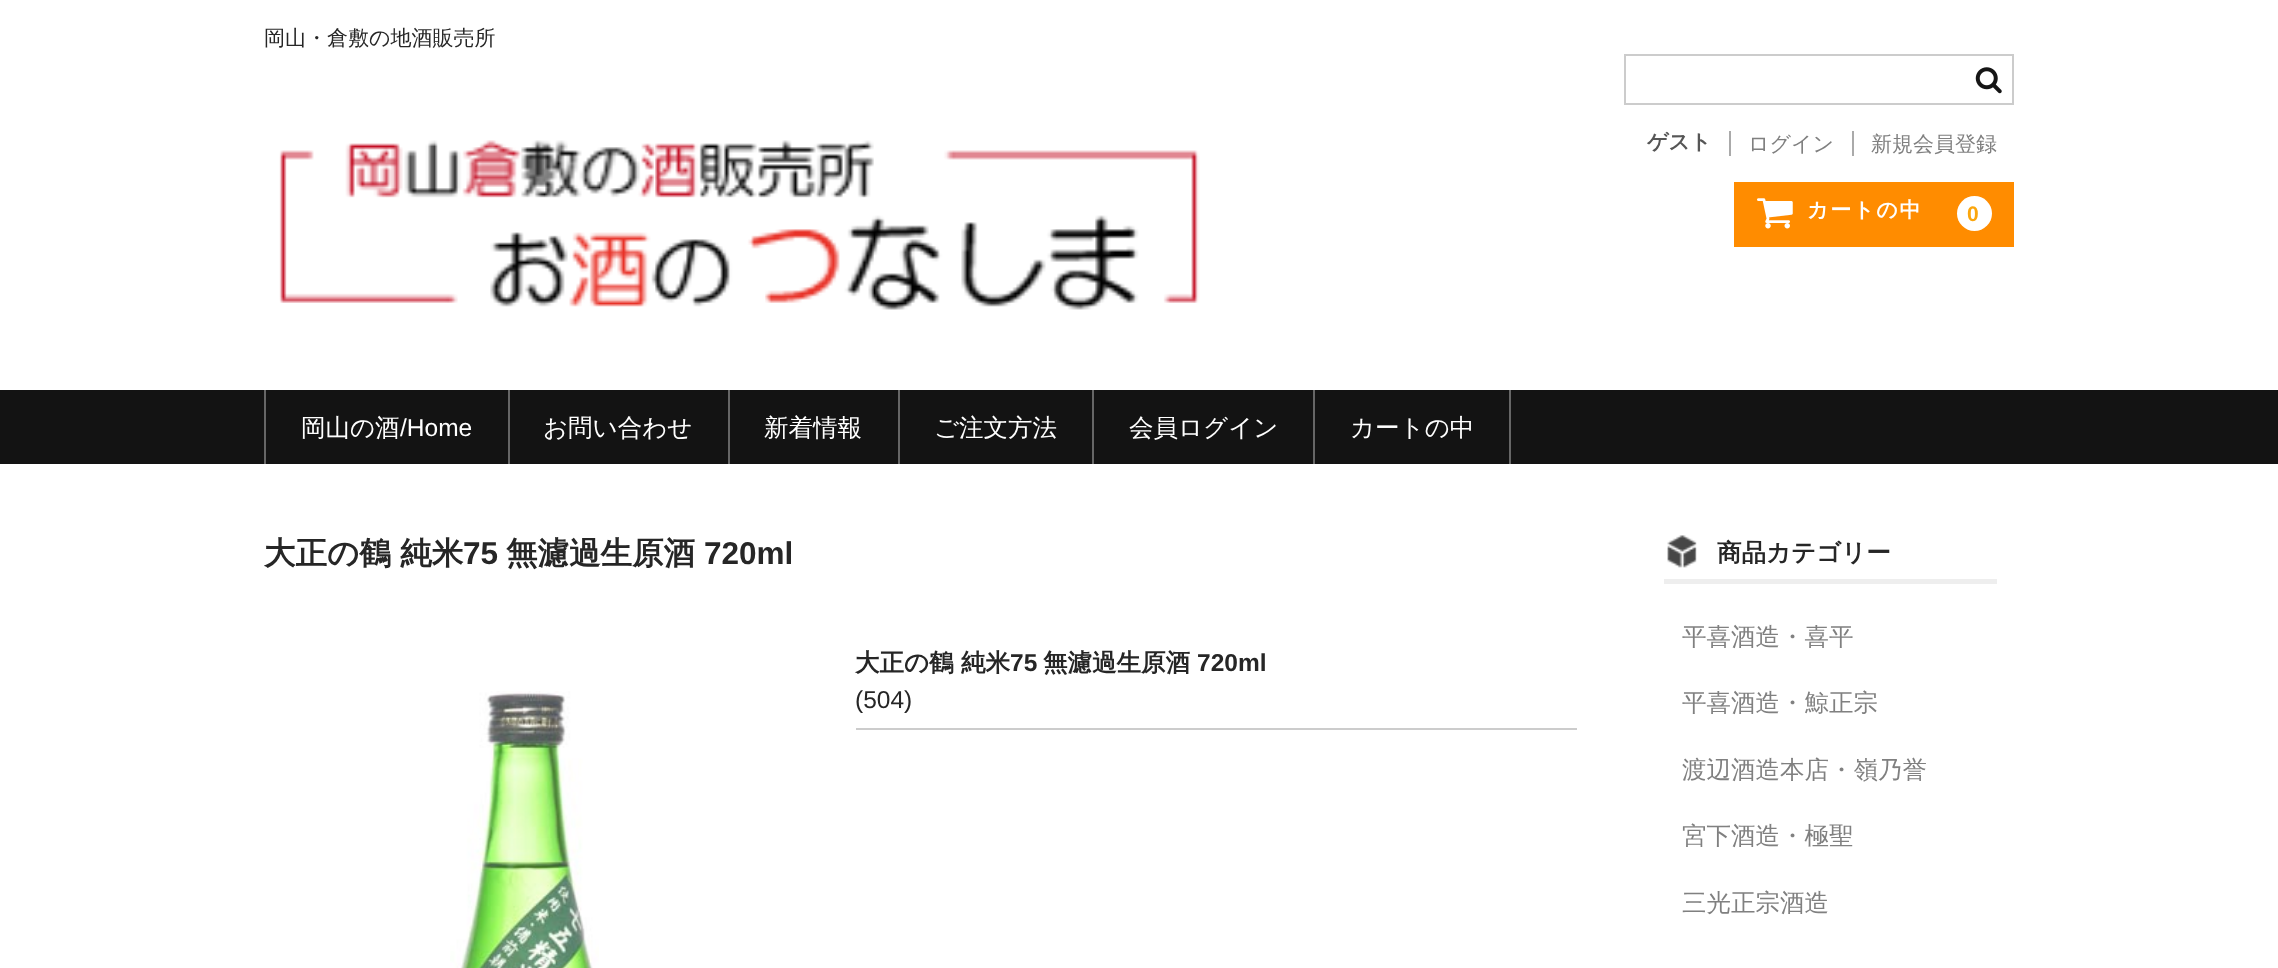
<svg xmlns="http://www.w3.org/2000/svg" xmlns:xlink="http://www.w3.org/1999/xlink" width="2278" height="968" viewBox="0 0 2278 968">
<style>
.cls-1{font:500 21px WenQuanYi Zen Hei;fill:#262626}
.cls-2{font:bold 21px WenQuanYi Zen Hei;fill:#565656}
.cls-3{font:500 21px WenQuanYi Zen Hei;fill:#808080}
.cls-4{font:bold 21px WenQuanYi Zen Hei;letter-spacing:1.75px;fill:#ffffff}
.cls-5{font:bold 21px Liberation Sans;letter-spacing:1.75px;fill:#fba60d}
.cls-6{font:500 24.5px WenQuanYi Zen Hei;fill:#ffffff}
.cls-7{font:24.5px Liberation Sans;fill:#ffffff}
.cls-8{font:bold 31.5px WenQuanYi Zen Hei;fill:#262626}
.cls-9{font:bold 31.5px Liberation Sans;fill:#262626}
.cls-10{font:bold 24.5px WenQuanYi Zen Hei;fill:#262626}
.cls-11{font:bold 24.5px Liberation Sans;fill:#262626}
.cls-12{font:24.5px Liberation Sans;fill:#262626}
.cls-13{font:500 24.5px WenQuanYi Zen Hei;fill:#808080}
</style>
<rect width="100%" height="100%" fill="#ffffff"/>
<image xlink:href="image0.png" x="279" y="140" width="921" height="170"/>
<rect fill="none" stroke="#cccccc" stroke-width="2" x="1625" y="55" width="388" height="49"/>
<image xlink:href="image1.png" x="1975" y="67" width="27" height="27"/>
<rect fill="#aaaaaa" x="1729" y="131" width="2" height="25"/>
<rect fill="#aaaaaa" x="1852" y="131" width="2" height="25"/>
<rect fill="#ff8c00" x="1734" y="182" width="280" height="65"/>
<image xlink:href="image2.png" x="1757" y="198" width="36" height="31"/>
<circle fill="#ffffff" cx="1974.5" cy="213.5" r="17.5"/>
<rect fill="#131313" x="0" y="390" width="2278" height="74"/>
<rect fill="#666666" x="508" y="390" width="2" height="74"/>
<rect fill="#666666" x="264" y="390" width="2" height="74"/>
<rect fill="#666666" x="728" y="390" width="2" height="74"/>
<rect fill="#666666" x="898" y="390" width="2" height="74"/>
<rect fill="#666666" x="1092" y="390" width="2" height="74"/>
<rect fill="#666666" x="1313" y="390" width="2" height="74"/>
<rect fill="#666666" x="1509" y="390" width="2" height="74"/>
<rect fill="#cccccc" x="856" y="728" width="721" height="2"/>
<image xlink:href="image3.png" x="450" y="691" width="149" height="277"/>
<rect fill="#eeeeee" x="1664" y="579" width="333" height="5"/>
<image xlink:href="image4.png" x="1667" y="535" width="30" height="33"/>
<text class="cls-1" x="264" y="45">岡山・倉敷の地酒販売所</text>
<text class="cls-2" x="1647" y="149">ゲスト</text>
<text class="cls-3" x="1748" y="151">ログイン</text>
<text class="cls-3" x="1871" y="151">新規会員登録</text>
<text class="cls-4" x="1807" y="217">カートの中</text>
<text class="cls-5" x="1967" y="221">0</text>
<text class="cls-6" x="301" y="436">岡山の酒</text>
<text class="cls-7" x="400" y="436">/Home</text>
<text class="cls-6" x="543" y="436">お問い合わせ</text>
<text class="cls-6" x="764" y="436">新着情報</text>
<text class="cls-6" x="934" y="436">ご注文方法</text>
<text class="cls-6" x="1129" y="436">会員ログイン</text>
<text class="cls-6" x="1350" y="436">カートの中</text>
<text class="cls-8" x="264" y="564">大正の鶴 純米</text>
<text class="cls-9" x="463" y="564">75</text>
<text class="cls-8" x="506" y="564">無濾過生原酒</text>
<text class="cls-9" x="704" y="564">720ml</text>
<text class="cls-10" x="855" y="671">大正の鶴 純米</text>
<text class="cls-11" x="1010" y="671">75</text>
<text class="cls-10" x="1043" y="671">無濾過生原酒</text>
<text class="cls-11" x="1197" y="671">720ml</text>
<text class="cls-12" x="855" y="708">(504)</text>
<text class="cls-10" x="1717" y="561">商品カテゴリー</text>
<text class="cls-13" x="1682" y="645">平喜酒造・喜平</text>
<text class="cls-13" x="1682" y="711">平喜酒造・鯨正宗</text>
<text class="cls-13" x="1682" y="778">渡辺酒造本店・嶺乃誉</text>
<text class="cls-13" x="1682" y="844">宮下酒造・極聖</text>
<text class="cls-13" x="1682" y="911">三光正宗酒造</text>
</svg>
